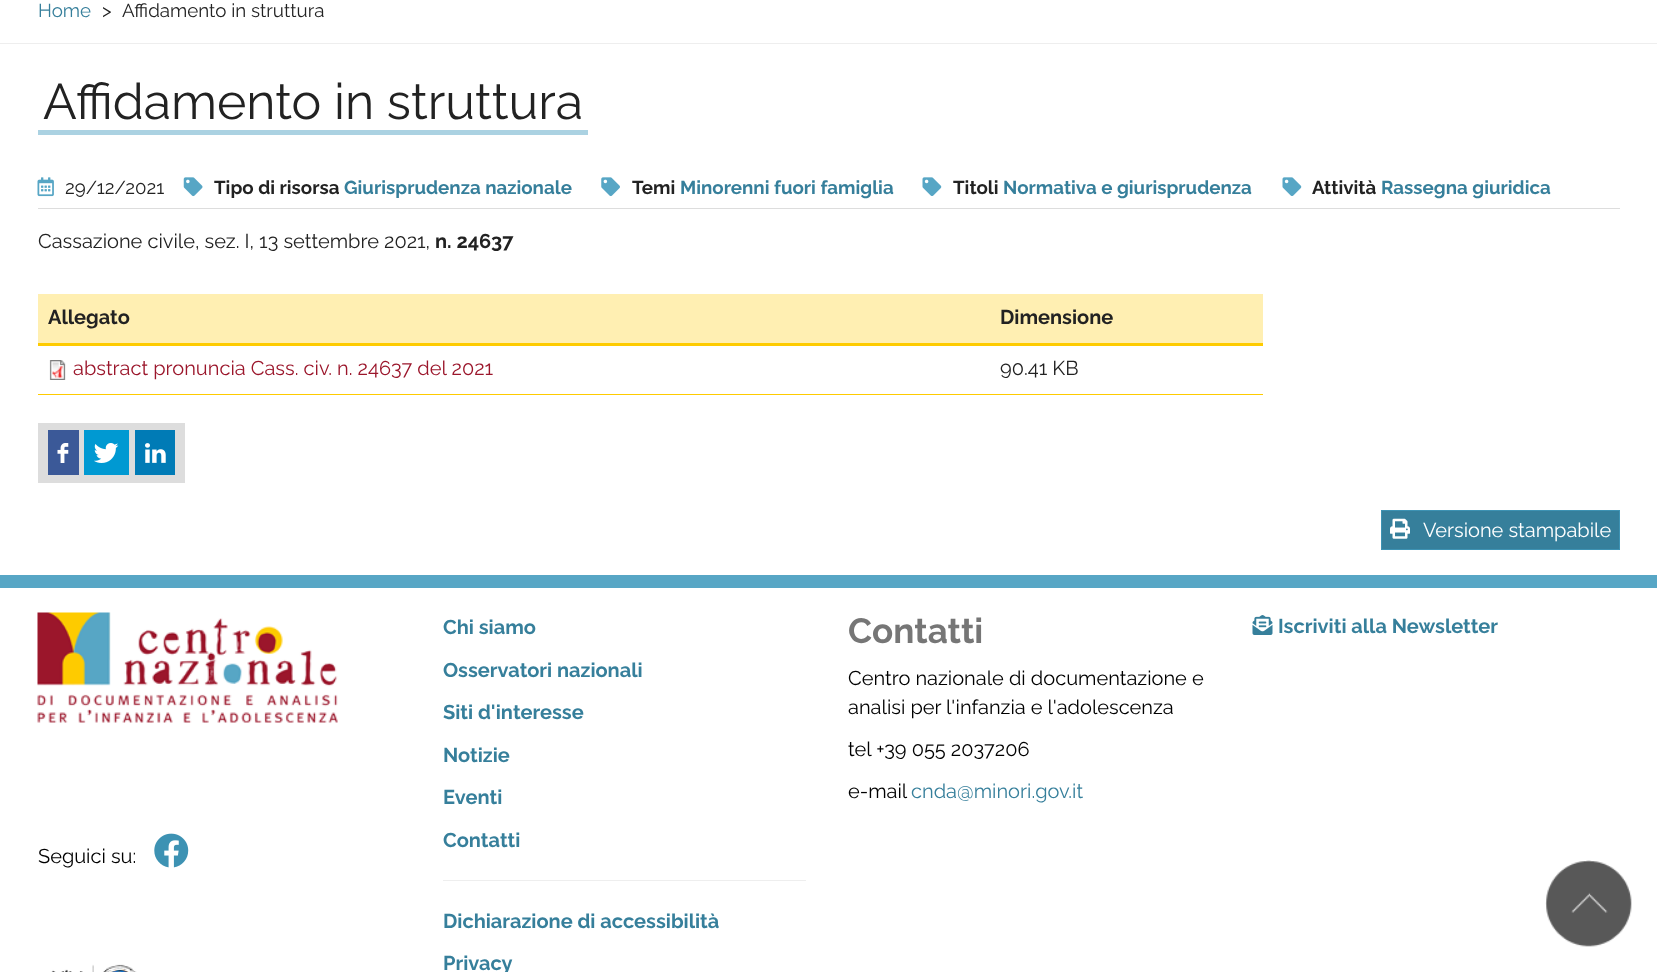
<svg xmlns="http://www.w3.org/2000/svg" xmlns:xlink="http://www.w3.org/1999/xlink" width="1657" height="972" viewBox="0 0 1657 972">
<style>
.cls-1{font:18.75px Raleway;fill:#367f9b}
.cls-2{font:18.75px Raleway;fill:#222222}
.cls-3{font:50px Raleway;fill:#222222}
.cls-4{font:bold 18.75px Raleway;fill:#222222}
.cls-5{font:bold 18.75px Raleway;fill:#367f9b}
.cls-6{font:20px Raleway;fill:#222222}
.cls-7{font:bold 20px Raleway;fill:#222222}
.cls-8{font:20px Raleway;fill:#9b162b}
.cls-9{font:20px Raleway;fill:#ffffff}
.cls-10{font:20px Raleway;fill:#000000}
.cls-11{font:bold 20px Raleway;fill:#367f9b}
.cls-12{font:bold 35px Raleway;fill:#767676}
.cls-13{font:20px Raleway;fill:#367f9b}
</style>
<rect width="100%" height="100%" fill="#ffffff"/>
<rect fill="#eeeeee" x="0" y="43" width="1657" height="1"/>
<rect fill="#abd2e2" x="38" y="130" width="550" height="5"/>
<rect fill="#dddddd" x="38" y="208" width="1582" height="1"/>
<image xlink:href="image0.png" x="37" y="177" width="17" height="20"/>
<image xlink:href="image1.png" x="183" y="177" width="20" height="20"/>
<image xlink:href="image2.png" x="601" y="177" width="19" height="20"/>
<image xlink:href="image3.png" x="922" y="177" width="20" height="19"/>
<image xlink:href="image3.png" x="1282" y="177" width="20" height="19"/>
<rect fill="#ffefb2" x="38" y="294" width="1225" height="49"/>
<rect fill="#fecb00" x="38" y="343" width="1225" height="3"/>
<rect fill="#fecb00" x="38" y="394" width="1225" height="1"/>
<image xlink:href="image4.png" x="49" y="360" width="17" height="20"/>
<rect fill="#dddddd" x="38" y="423" width="147" height="60"/>
<rect fill="#3b5998" x="48" y="430" width="31" height="45"/>
<image xlink:href="image5.png" x="57" y="443" width="12" height="20"/>
<rect fill="#0099d2" x="84" y="430" width="45" height="45"/>
<image xlink:href="image6.png" x="94" y="443" width="25" height="20"/>
<rect fill="#007bb6" x="135" y="430" width="40" height="45"/>
<image xlink:href="image7.png" x="145" y="443" width="21" height="20"/>
<rect fill="#367f9b" stroke="#3d92b3" x="1381.5" y="510.5" width="238" height="39"/>
<image xlink:href="image8.png" x="1390" y="518" width="20" height="21"/>
<rect fill="#57a6c5" x="0" y="575" width="1657" height="13"/>
<image xlink:href="image9.png" x="37" y="612" width="301" height="111"/>
<image xlink:href="image10.png" x="154" y="833" width="35" height="35"/>
<image xlink:href="image11.png" x="51" y="964" width="86" height="8"/>
<rect fill="#eeeeee" x="443" y="880" width="363" height="1"/>
<image xlink:href="image12.png" x="1252" y="615" width="21" height="20"/>
<image xlink:href="image13.png" x="1545" y="860" width="87" height="87"/>
<text class="cls-1" x="38" y="17">Home</text>
<text class="cls-2" x="102" y="17">&gt;</text>
<text class="cls-2" x="122" y="17">Affidamento in struttura</text>
<text class="cls-3" x="43" y="119">Affidamento in struttura</text>
<text class="cls-2" x="65" y="194">29/12/2021</text>
<text class="cls-4" x="214" y="194">Tipo di risorsa</text>
<text class="cls-5" x="344" y="194">Giurisprudenza nazionale</text>
<text class="cls-4" x="632" y="194">Temi</text>
<text class="cls-5" x="680" y="194">Minorenni fuori famiglia</text>
<text class="cls-4" x="953" y="194">Titoli</text>
<text class="cls-5" x="1003" y="194">Normativa e giurisprudenza</text>
<text class="cls-4" x="1312" y="194">Attività</text>
<text class="cls-5" x="1381" y="194">Rassegna giuridica</text>
<text class="cls-6" x="38" y="248">Cassazione civile, sez. I, 13 settembre 2021,</text>
<text class="cls-7" x="435" y="248">n. 24637</text>
<text class="cls-7" x="48" y="324">Allegato</text>
<text class="cls-7" x="1000" y="324">Dimensione</text>
<text class="cls-8" x="73" y="375">abstract pronuncia Cass. civ. n. 24637 del 2021</text>
<text class="cls-6" x="1000" y="375">90.41 KB</text>
<text class="cls-9" x="1423" y="537">Versione stampabile</text>
<text class="cls-10" x="38" y="863">Seguici su:</text>
<text class="cls-11" x="443" y="634">Chi siamo</text>
<text class="cls-11" x="443" y="677">Osservatori nazionali</text>
<text class="cls-11" x="443" y="719">Siti d'interesse</text>
<text class="cls-11" x="443" y="762">Notizie</text>
<text class="cls-11" x="443" y="804">Eventi</text>
<text class="cls-11" x="443" y="847">Contatti</text>
<text class="cls-11" x="443" y="928">Dichiarazione di accessibilità</text>
<text class="cls-11" x="443" y="970">Privacy</text>
<text class="cls-12" x="848" y="643">Contatti</text>
<text class="cls-10"><tspan x="848" y="685">Centro nazionale di documentazione e</tspan><tspan x="848" y="714">analisi per l'infanzia e l'adolescenza</tspan></text>
<text class="cls-10" x="848" y="756">tel +39 055 2037206</text>
<text class="cls-10" x="848" y="798">e-mail</text>
<text class="cls-13" x="911" y="798">cnda@minori.gov.it</text>
<text class="cls-11" x="1278" y="633">Iscriviti alla Newsletter</text>
</svg>
